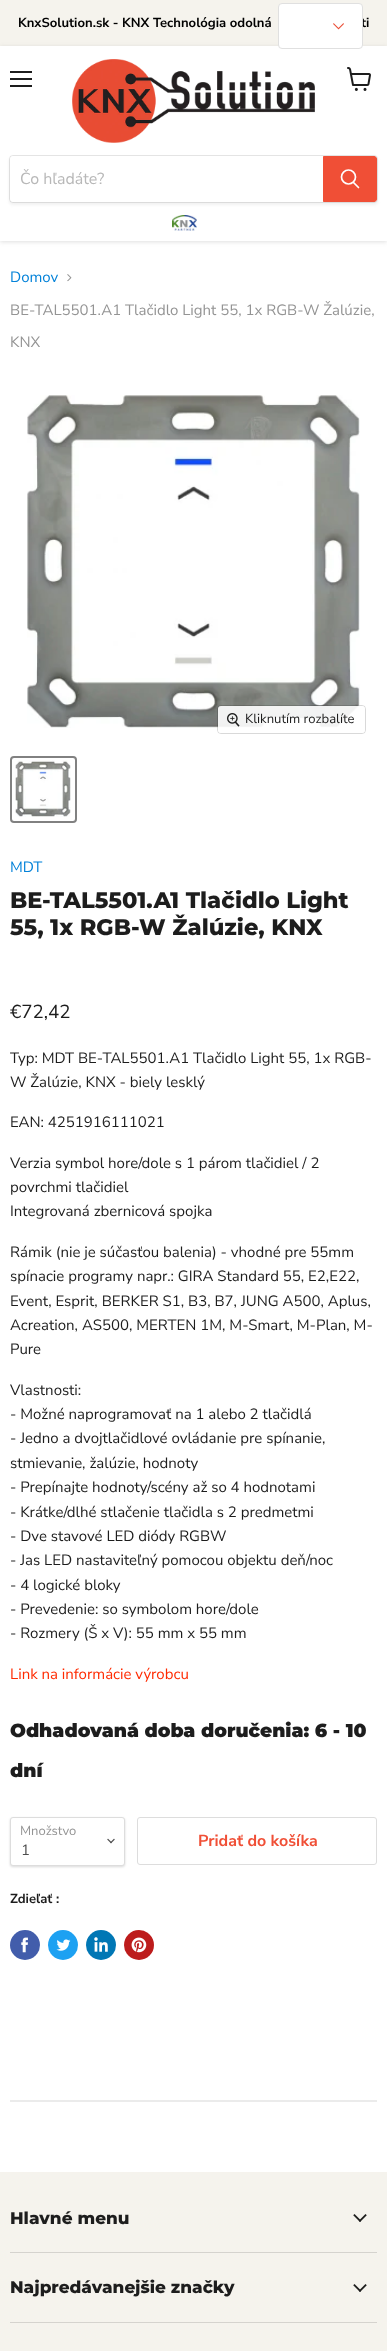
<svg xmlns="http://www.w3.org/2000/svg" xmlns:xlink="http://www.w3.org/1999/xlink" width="387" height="2351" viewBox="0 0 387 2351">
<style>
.cls-1{font:bold 13.1px Nunito Sans;fill:#000000}
.cls-2{font:16px Nunito Sans;fill:#b8b8b8}
.cls-3{font:15px Nunito Sans;fill:#0382d9}
.cls-4{font:15px Nunito Sans;fill:#949494}
.cls-5{font:13.1px Nunito Sans;fill:#1d1d1d}
.cls-6{font:800 22.5px Montserrat;fill:#1d1d1d}
.cls-7{font:18.75px Nunito Sans;fill:#1d1d1d}
.cls-8{font:15px Nunito Sans;fill:#1d1d1d}
.cls-9{font:15px Nunito Sans;fill:#ff2a00}
.cls-10{font:900 18.75px Montserrat;fill:#1d1d1d}
.cls-11{font:13px Nunito Sans;fill:#949494}
.cls-12{font:15px Nunito Sans;fill:#4d4d4d}
.cls-13{font:bold 16px Nunito Sans;fill:#f04f36}
.cls-14{font:bold 13.1px Nunito Sans;fill:#1d1d1d}
.cls-15{font:800 16.9px Montserrat;fill:#1d1d1d}
</style>
<rect width="100%" height="100%" fill="#ffffff"/>
<rect fill="#f5f3ed" x="0" y="0" width="387" height="46"/>
<rect fill="#808080" fill-opacity="0.25" filter="blur(2px)" x="0" y="47" width="387" height="195"/>
<rect fill="#ffffff" x="0" y="46" width="387" height="195"/>
<rect fill="#1d1d1d" x="10" y="71" width="22" height="2"/>
<rect fill="#1d1d1d" x="10" y="78" width="22" height="2"/>
<rect fill="#1d1d1d" x="10" y="85" width="22" height="2"/>
<image xlink:href="image1.png" x="347" y="67" width="24" height="24"/>
<image xlink:href="image2.png" x="72" y="59" width="243" height="84"/>
<rect fill="#808080" fill-opacity="0.11" filter="blur(1.5px)" x="9" y="157" width="369" height="48" rx="4"/>
<rect fill="none" stroke="#808080" stroke-opacity="0.2" x="9.5" y="155.5" width="368" height="47" rx="3.5"/>
<path fill="#ffffff" d="M13 156H323V202H13C11.5 202 10 200.5 10 199V159C10 157.5 11.5 156 13 156Z"/>
<path fill="#f04f36" stroke="#f04f36" d="M323.5 156.5H374C375.5 156.5 376.5 157.5 376.5 159V199C376.5 200.5 375.5 201.5 374 201.5H323.5Z"/>
<path fill="none" stroke="#ffffff" stroke-width="1.7" stroke-linecap="round" d="M358.5 187.5L353.5 182.5"/>
<circle fill="none" stroke="#ffffff" stroke-width="1.7" cx="348.5" cy="177" r="7"/>
<image xlink:href="image3.png" x="172" y="215" width="25" height="16"/>
<image xlink:href="image4.png" x="67" y="274" width="5" height="8"/>
<image xlink:href="image5.png" x="27" y="395" width="333" height="333"/>
<rect fill="none" stroke="#000000" stroke-opacity="0.15" x="217.5" y="705.5" width="148" height="28" rx="3.5"/>
<rect fill="#ffffff" fill-opacity="0.9" x="218" y="706" width="147" height="27" rx="3"/>
<image xlink:href="image6.png" x="227" y="713" width="13" height="14"/>
<rect fill="none" stroke="#818181" stroke-width="2" x="11" y="757" width="65" height="65" rx="3"/>
<image xlink:href="image7.png" x="15" y="760" width="56" height="57"/>
<rect fill="#000000" fill-opacity="0.15" filter="blur(1px)" x="10" y="1818" width="115" height="49" rx="3"/>
<rect fill="#ffffff" stroke="#dddddd" x="10.5" y="1817.5" width="114" height="48" rx="2.5"/>
<image xlink:href="image8.png" x="107" y="1838" width="8" height="6"/>
<rect fill="none" stroke="#dddddd" x="137.5" y="1817.5" width="239" height="47" rx="2.5"/>
<circle fill="#425dab" cx="25" cy="1945" r="15"/>
<image xlink:href="image9.png" x="21" y="1937" width="7" height="16"/>
<circle fill="#1da1f2" cx="63" cy="1945" r="15"/>
<image xlink:href="image10.png" x="56" y="1939" width="15" height="12"/>
<circle fill="#0077b5" cx="101" cy="1945" r="15"/>
<image xlink:href="image11.png" x="94" y="1937" width="14" height="15"/>
<circle fill="#bd1c1c" cx="139" cy="1945" r="15"/>
<image xlink:href="image12.png" x="131" y="1937" width="16" height="16"/>
<rect fill="#ebebeb" x="10" y="2100" width="367" height="2"/>
<rect fill="#f5f3ed" x="0" y="2172" width="387" height="179"/>
<rect fill="#d5d3ce" x="10" y="2252" width="367" height="1"/>
<image xlink:href="image13.png" x="353" y="2214" width="14" height="8"/>
<rect fill="#d5d3ce" x="10" y="2322" width="367" height="1"/>
<image xlink:href="image13.png" x="353" y="2284" width="14" height="8"/>
<text class="cls-1" x="18" y="27">KnxSolution.sk - KNX Technológia odolná</text>
<text class="cls-1" x="361" y="27">ti</text>
<rect fill="#ffffff" stroke="#e0e0e0" x="278.5" y="3.5" width="84" height="45" rx="3.5"/>
<image xlink:href="image0.png" x="333" y="23" width="11" height="7"/>
<text class="cls-2" x="20" y="184">Čo hľadáte?</text>
<text class="cls-3" x="10" y="282">Domov</text>
<text class="cls-4" x="10" y="315">BE-TAL5501.A1 Tlačidlo Light 55, 1x RGB-W Žalúzie,</text>
<text class="cls-4" x="10" y="347">KNX</text>
<text class="cls-5" x="245" y="723">Kliknutím rozbalíte</text>
<text class="cls-3" x="10" y="872">MDT</text>
<text class="cls-6"><tspan x="10" y="908">BE-TAL5501.A1 Tlačidlo Light</tspan><tspan x="10" y="935">55, 1x RGB-W Žalúzie, KNX</tspan></text>
<text class="cls-7" x="10" y="1018">€72,42</text>
<text class="cls-8"><tspan x="10" y="1063">Typ: MDT BE-TAL5501.A1 Tlačidlo Light 55, 1x RGB-</tspan><tspan x="10" y="1087">W Žalúzie, KNX - biely lesklý</tspan></text>
<text class="cls-8" x="10" y="1127">EAN: 4251916111021</text>
<text class="cls-8"><tspan x="10" y="1168">Verzia symbol hore/dole s 1 párom tlačidiel / 2</tspan><tspan x="10" y="1192">povrchmi tlačidiel</tspan><tspan x="10" y="1216">Integrovaná zbernicová spojka</tspan></text>
<text class="cls-8"><tspan x="10" y="1257">Rámik (nie je súčasťou balenia) - vhodné pre 55mm</tspan><tspan x="10" y="1281">spínacie programy napr.: GIRA Standard 55, E2,E22,</tspan><tspan x="10" y="1306">Event, Esprit, BERKER S1, B3, B7, JUNG A500, Aplus,</tspan><tspan x="10" y="1330">Acreation, AS500, MERTEN 1M, M-Smart, M-Plan, M-</tspan><tspan x="10" y="1354">Pure</tspan></text>
<text class="cls-8"><tspan x="10" y="1395">Vlastnosti:</tspan><tspan x="10" y="1419">- Možné naprogramovať na 1 alebo 2 tlačidlá</tspan><tspan x="10" y="1443">- Jedno a dvojtlačidlové ovládanie pre spínanie,</tspan><tspan x="10" y="1468">stmievanie, žalúzie, hodnoty</tspan><tspan x="10" y="1492">- Prepínajte hodnoty/scény až so 4 hodnotami</tspan><tspan x="10" y="1517">- Krátke/dlhé stlačenie tlačidla s 2 predmetmi</tspan><tspan x="10" y="1541">- Dve stavové LED diódy RGBW</tspan><tspan x="10" y="1565">- Jas LED nastaviteľný pomocou objektu deň/noc</tspan><tspan x="10" y="1590">- 4 logické bloky</tspan><tspan x="10" y="1614">- Prevedenie: so symbolom hore/dole</tspan><tspan x="10" y="1638">- Rozmery (Š x V): 55 mm x 55 mm</tspan></text>
<text class="cls-9" x="10" y="1679">Link na informácie výrobcu</text>
<text class="cls-10" x="10" y="1737">Odhadovaná doba doručenia: 6 - 10</text>
<text class="cls-10" x="10" y="1777">dní</text>
<text class="cls-11" x="20" y="1835">Množstvo</text>
<text class="cls-12" x="21" y="1855">1</text>
<text class="cls-13" x="198" y="1846">Pridať do košíka</text>
<text class="cls-14" x="10" y="1903">Zdieľať :</text>
<text class="cls-15" x="10" y="2224">Hlavné menu</text>
<text class="cls-15" x="10" y="2293">Najpredávanejšie značky</text>
</svg>
